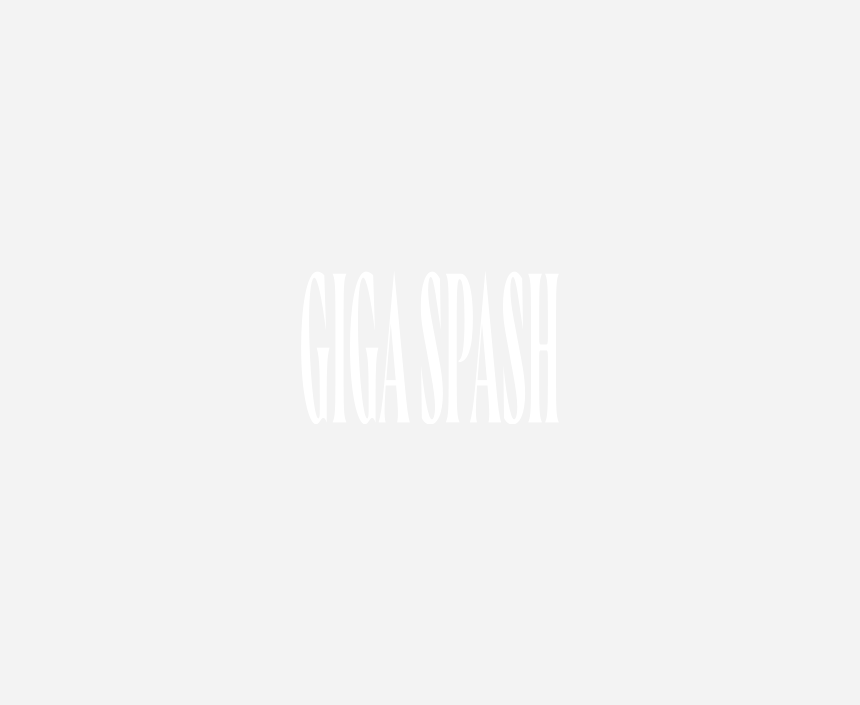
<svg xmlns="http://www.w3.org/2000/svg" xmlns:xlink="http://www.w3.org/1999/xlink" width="860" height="705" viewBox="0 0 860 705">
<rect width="100%" height="100%" fill="#f3f3f3"/>
<image xlink:href="image0.png" x="301" y="271" width="258" height="153"/>
</svg>
